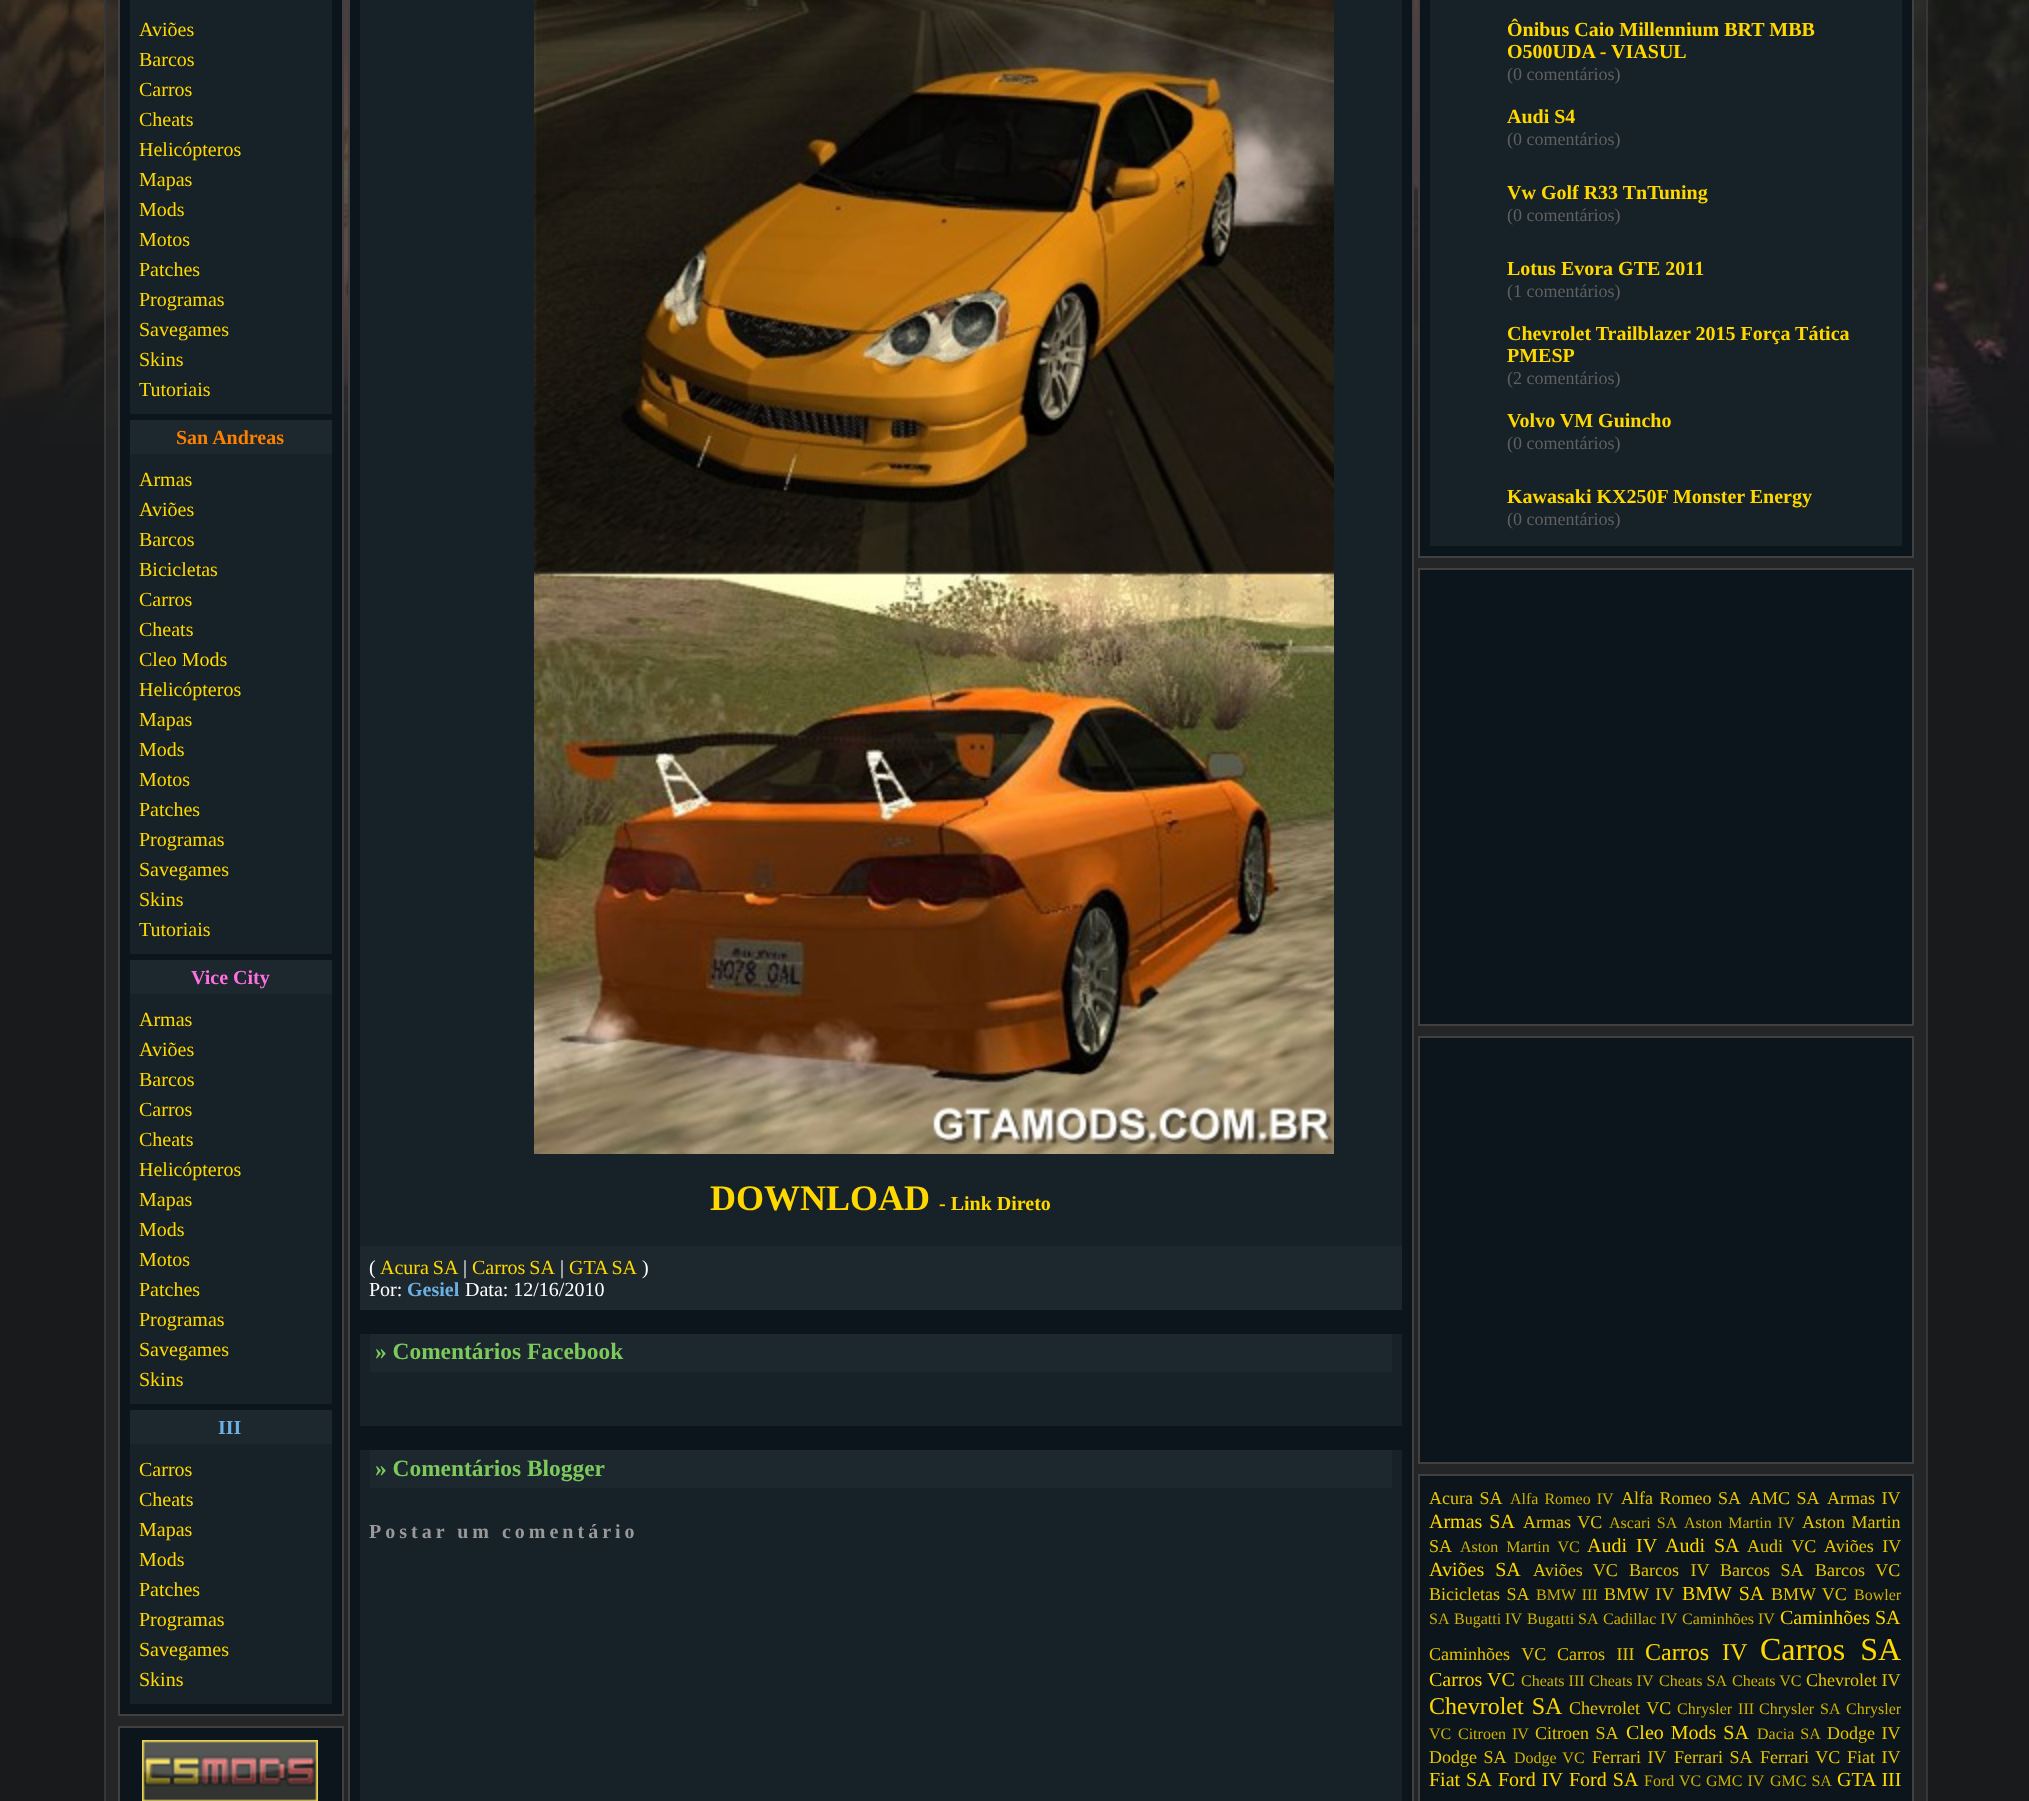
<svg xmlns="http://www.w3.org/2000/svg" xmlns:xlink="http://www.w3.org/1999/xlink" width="2029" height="1801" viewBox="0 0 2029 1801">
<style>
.cls-1{font:20px Liberation Serif;fill:#ffd800}
.cls-2{font:bold 20px Liberation Serif;fill:#fd8000}
.cls-3{font:bold 20px Liberation Serif;fill:#fd70e1}
.cls-4{font:bold 20px Liberation Serif;fill:#6cb1e1}
.cls-5{font:bold 36px Liberation Serif;fill:#ffd800}
.cls-6{font:bold 20px Liberation Serif;fill:#ffd800}
.cls-7{font:20px Liberation Serif;fill:#ffffff}
.cls-8{font:bold 23.4px Liberation Serif;fill:#7dca5c}
.cls-9{font:bold 20px Liberation Serif;letter-spacing:4px;fill:#999999}
.cls-10{font:18px Liberation Serif;fill:#616161}
.cls-11{font:18px Liberation Serif;fill:#e7c503}
.cls-12{font:16px Liberation Serif;fill:#ceb105}
.cls-13{font:24px Liberation Serif;fill:#ffd800}
.cls-14{font:32px Liberation Serif;fill:#ffd800}
</style>
<rect width="100%" height="100%" fill="#181a1c"/>
<image xlink:href="image0.png" x="0" y="0" width="2029" height="446"/>
<rect fill="#2d2d2d" fill-opacity="0.6" stroke="#343637" stroke-width="2" x="105" y="-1" width="1822" height="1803"/>
<rect fill="#0c151b" stroke="#404040" stroke-width="2" x="119" y="-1" width="224" height="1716"/>
<rect fill="#162128" x="130" y="0" width="202" height="414"/>
<rect fill="#1c272e" x="130" y="420" width="202" height="34"/>
<rect fill="#162128" x="130" y="454" width="202" height="500"/>
<rect fill="#1c272e" x="130" y="960" width="202" height="34"/>
<rect fill="#162128" x="130" y="994" width="202" height="410"/>
<rect fill="#1c272e" x="130" y="1410" width="202" height="34"/>
<rect fill="#162128" x="130" y="1444" width="202" height="260"/>
<rect fill="#0c151b" stroke="#404040" stroke-width="2" x="119" y="1727" width="224" height="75"/>
<image xlink:href="image1.png" x="142" y="1740" width="176" height="61"/>
<rect fill="#0c151b" stroke="#404040" stroke-width="2" x="349" y="-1" width="1064" height="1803"/>
<rect fill="#162128" x="360" y="0" width="1042" height="1246"/>
<image xlink:href="image2.png" x="534" y="0" width="800" height="1154"/>
<rect fill="#1c272e" x="360" y="1246" width="1042" height="64"/>
<rect fill="#162128" x="360" y="1334" width="1042" height="92"/>
<rect fill="#1c272e" x="370" y="1334" width="1022" height="38"/>
<rect fill="#162128" x="360" y="1450" width="1042" height="351"/>
<rect fill="#1c272e" x="370" y="1450" width="1022" height="38"/>
<rect fill="#0c151b" stroke="#404040" stroke-width="2" x="1419" y="-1" width="494" height="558"/>
<rect fill="#162128" x="1430" y="0" width="472" height="546"/>
<rect fill="#0c151b" stroke="#404040" stroke-width="2" x="1419" y="569" width="494" height="456"/>
<rect fill="#0c151b" stroke="#404040" stroke-width="2" x="1419" y="1037" width="494" height="426"/>
<rect fill="#0c151b" stroke="#404040" stroke-width="2" x="1419" y="1475" width="494" height="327"/>
<text class="cls-1"><tspan x="139" y="36">Aviões</tspan><tspan x="139" y="66">Barcos</tspan><tspan x="139" y="96">Carros</tspan><tspan x="139" y="126">Cheats</tspan><tspan x="139" y="156">Helicópteros</tspan><tspan x="139" y="186">Mapas</tspan><tspan x="139" y="216">Mods</tspan><tspan x="139" y="246">Motos</tspan><tspan x="139" y="276">Patches</tspan><tspan x="139" y="306">Programas</tspan><tspan x="139" y="336">Savegames</tspan><tspan x="139" y="366">Skins</tspan><tspan x="139" y="396">Tutoriais</tspan></text>
<text class="cls-2" x="176" y="444">San Andreas</text>
<text class="cls-1"><tspan x="139" y="486">Armas</tspan><tspan x="139" y="516">Aviões</tspan><tspan x="139" y="546">Barcos</tspan><tspan x="139" y="576">Bicicletas</tspan><tspan x="139" y="606">Carros</tspan><tspan x="139" y="636">Cheats</tspan><tspan x="139" y="666">Cleo Mods</tspan><tspan x="139" y="696">Helicópteros</tspan><tspan x="139" y="726">Mapas</tspan><tspan x="139" y="756">Mods</tspan><tspan x="139" y="786">Motos</tspan><tspan x="139" y="816">Patches</tspan><tspan x="139" y="846">Programas</tspan><tspan x="139" y="876">Savegames</tspan><tspan x="139" y="906">Skins</tspan><tspan x="139" y="936">Tutoriais</tspan></text>
<text class="cls-3" x="191" y="984">Vice City</text>
<text class="cls-1"><tspan x="139" y="1026">Armas</tspan><tspan x="139" y="1056">Aviões</tspan><tspan x="139" y="1086">Barcos</tspan><tspan x="139" y="1116">Carros</tspan><tspan x="139" y="1146">Cheats</tspan><tspan x="139" y="1176">Helicópteros</tspan><tspan x="139" y="1206">Mapas</tspan><tspan x="139" y="1236">Mods</tspan><tspan x="139" y="1266">Motos</tspan><tspan x="139" y="1296">Patches</tspan><tspan x="139" y="1326">Programas</tspan><tspan x="139" y="1356">Savegames</tspan><tspan x="139" y="1386">Skins</tspan></text>
<text class="cls-4" x="218" y="1434">III</text>
<text class="cls-1"><tspan x="139" y="1476">Carros</tspan><tspan x="139" y="1506">Cheats</tspan><tspan x="139" y="1536">Mapas</tspan><tspan x="139" y="1566">Mods</tspan><tspan x="139" y="1596">Patches</tspan><tspan x="139" y="1626">Programas</tspan><tspan x="139" y="1656">Savegames</tspan><tspan x="139" y="1686">Skins</tspan></text>
<text class="cls-5" x="710" y="1210">DOWNLOAD</text>
<text class="cls-6" x="939" y="1210">- Link Direto</text>
<text class="cls-7" x="369" y="1274">(</text>
<text class="cls-1" x="380" y="1274" word-spacing="-1">Acura SA</text>
<text class="cls-7" x="463" y="1274">|</text>
<text class="cls-1" x="472" y="1274" word-spacing="-1">Carros SA</text>
<text class="cls-7" x="560" y="1274">|</text>
<text class="cls-1" x="569" y="1274" word-spacing="-1">GTA SA</text>
<text class="cls-7" x="642" y="1274">)</text>
<text class="cls-7" x="369" y="1296">Por:</text>
<text class="cls-4" x="407" y="1296">Gesiel</text>
<text class="cls-7" x="465" y="1296">Data: 12/16/2010</text>
<text class="cls-8" x="375" y="1359">» Comentários Facebook</text>
<text class="cls-8" x="375" y="1476">» Comentários Blogger</text>
<text class="cls-9" x="369" y="1538">Postar um comentário</text>
<text class="cls-6"><tspan x="1507" y="36">Ônibus Caio Millennium BRT MBB</tspan><tspan x="1507" y="58">O500UDA - VIASUL</tspan></text>
<text class="cls-10" x="1507" y="80">(0 comentários)</text>
<text class="cls-6" x="1507" y="123">Audi S4</text>
<text class="cls-10" x="1507" y="145">(0 comentários)</text>
<text class="cls-6" x="1507" y="199">Vw Golf R33 TnTuning</text>
<text class="cls-10" x="1507" y="221">(0 comentários)</text>
<text class="cls-6" x="1507" y="275">Lotus Evora GTE 2011</text>
<text class="cls-10" x="1507" y="297">(1 comentários)</text>
<text class="cls-6"><tspan x="1507" y="340">Chevrolet Trailblazer 2015 Força Tática</tspan><tspan x="1507" y="362">PMESP</tspan></text>
<text class="cls-10" x="1507" y="384">(2 comentários)</text>
<text class="cls-6" x="1507" y="427">Volvo VM Guincho</text>
<text class="cls-10" x="1507" y="449">(0 comentários)</text>
<text class="cls-6" x="1507" y="503">Kawasaki KX250F Monster Energy</text>
<text class="cls-10" x="1507" y="525">(0 comentários)</text>
<text class="cls-11" x="1429" y="1504" word-spacing="2">Acura SA</text>
<text class="cls-12" x="1510" y="1504" word-spacing="2">Alfa Romeo IV</text>
<text class="cls-11" x="1621" y="1504" word-spacing="2">Alfa Romeo SA</text>
<text class="cls-11" x="1749" y="1504" word-spacing="2">AMC SA</text>
<text class="cls-11" x="1827" y="1504" word-spacing="2">Armas IV</text>
<text class="cls-1" x="1429" y="1528" word-spacing="2">Armas SA</text>
<text class="cls-11" x="1523" y="1528" word-spacing="2">Armas VC</text>
<text class="cls-12" x="1609" y="1528" word-spacing="2">Ascari SA</text>
<text class="cls-12" x="1684" y="1528" word-spacing="2">Aston Martin IV</text>
<text class="cls-11" x="1802" y="1528" word-spacing="2">Aston Martin</text>
<text class="cls-11" x="1429" y="1552">SA</text>
<text class="cls-12" x="1460" y="1552" word-spacing="4">Aston Martin VC</text>
<text class="cls-1" x="1587" y="1552" word-spacing="4">Audi IV</text>
<text class="cls-1" x="1665" y="1552" word-spacing="4">Audi SA</text>
<text class="cls-11" x="1747" y="1552" word-spacing="4">Audi VC</text>
<text class="cls-11" x="1824" y="1552" word-spacing="4">Aviões IV</text>
<text class="cls-1" x="1429" y="1576" word-spacing="6">Aviões SA</text>
<text class="cls-11" x="1533" y="1576" word-spacing="6">Aviões VC</text>
<text class="cls-11" x="1629" y="1576" word-spacing="7">Barcos IV</text>
<text class="cls-11" x="1720" y="1576" word-spacing="6">Barcos SA</text>
<text class="cls-11" x="1815" y="1576" word-spacing="6">Barcos VC</text>
<text class="cls-11" x="1429" y="1600" word-spacing="2">Bicicletas SA</text>
<text class="cls-12" x="1536" y="1600" word-spacing="2">BMW III</text>
<text class="cls-11" x="1604" y="1600" word-spacing="2">BMW IV</text>
<text class="cls-1" x="1682" y="1600" word-spacing="2">BMW SA</text>
<text class="cls-11" x="1771" y="1600" word-spacing="2">BMW VC</text>
<text class="cls-12" x="1854" y="1600">Bowler</text>
<text class="cls-12" x="1429" y="1624">SA</text>
<text class="cls-12" x="1454" y="1624">Bugatti IV</text>
<text class="cls-12" x="1527" y="1624">Bugatti SA</text>
<text class="cls-12" x="1603" y="1624">Cadillac IV</text>
<text class="cls-12" x="1682" y="1624">Caminhões IV</text>
<text class="cls-1" x="1780" y="1624">Caminhões SA</text>
<text class="cls-11" x="1429" y="1660" word-spacing="7">Caminhões VC</text>
<text class="cls-11" x="1557" y="1660" word-spacing="7">Carros III</text>
<text class="cls-13" x="1645" y="1660" word-spacing="7">Carros IV</text>
<text class="cls-14" x="1760" y="1660" word-spacing="7">Carros SA</text>
<text class="cls-1" x="1429" y="1686">Carros VC</text>
<text class="cls-12" x="1521" y="1686">Cheats III</text>
<text class="cls-12" x="1589" y="1686">Cheats IV</text>
<text class="cls-12" x="1659" y="1686">Cheats SA</text>
<text class="cls-12" x="1732" y="1686">Cheats VC</text>
<text class="cls-11" x="1806" y="1686">Chevrolet IV</text>
<text class="cls-13" x="1429" y="1714" word-spacing="2">Chevrolet SA</text>
<text class="cls-11" x="1569" y="1714" word-spacing="2">Chevrolet VC</text>
<text class="cls-12" x="1677" y="1714" word-spacing="2">Chrysler III</text>
<text class="cls-12" x="1759" y="1714" word-spacing="2">Chrysler SA</text>
<text class="cls-12" x="1846" y="1714">Chrysler</text>
<text class="cls-12" x="1429" y="1739">VC</text>
<text class="cls-12" x="1458" y="1739" word-spacing="2">Citroen IV</text>
<text class="cls-11" x="1535" y="1739" word-spacing="2">Citroen SA</text>
<text class="cls-1" x="1626" y="1739" word-spacing="2">Cleo Mods SA</text>
<text class="cls-12" x="1757" y="1739" word-spacing="2">Dacia SA</text>
<text class="cls-11" x="1827" y="1739" word-spacing="2">Dodge IV</text>
<text class="cls-11" x="1429" y="1763" word-spacing="2">Dodge SA</text>
<text class="cls-12" x="1514" y="1763" word-spacing="2">Dodge VC</text>
<text class="cls-11" x="1592" y="1763" word-spacing="2">Ferrari IV</text>
<text class="cls-11" x="1674" y="1763" word-spacing="2">Ferrari SA</text>
<text class="cls-11" x="1760" y="1763" word-spacing="2">Ferrari VC</text>
<text class="cls-11" x="1847" y="1763" word-spacing="2">Fiat IV</text>
<text class="cls-1" x="1429" y="1786" word-spacing="1">Fiat SA</text>
<text class="cls-1" x="1498" y="1786" word-spacing="1">Ford IV</text>
<text class="cls-1" x="1569" y="1786" word-spacing="1">Ford SA</text>
<text class="cls-12" x="1644" y="1786" word-spacing="1">Ford VC</text>
<text class="cls-12" x="1706" y="1786" word-spacing="1">GMC IV</text>
<text class="cls-12" x="1770" y="1786" word-spacing="1">GMC SA</text>
<text class="cls-1" x="1837" y="1786" word-spacing="1">GTA III</text>
</svg>
